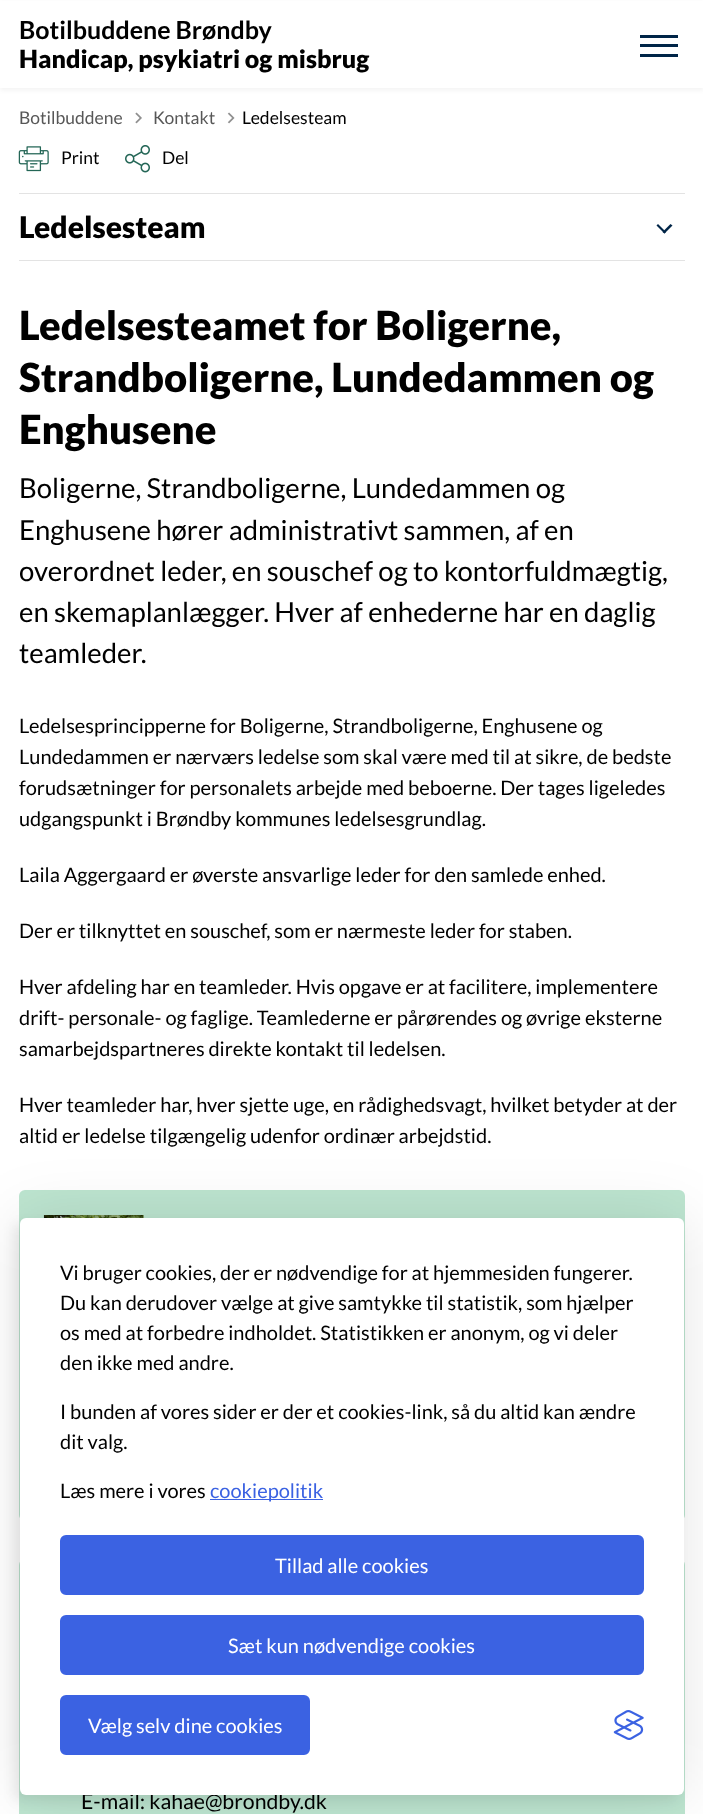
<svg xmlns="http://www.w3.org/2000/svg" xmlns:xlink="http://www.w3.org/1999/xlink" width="703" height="1814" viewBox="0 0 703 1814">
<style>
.cls-1{font:bold 25px Lato;fill:#000000}
.cls-2{font:900 25px Lato;fill:#000000}
.cls-3{font:17.5px Lato;fill:#575757}
.cls-4{font:17.5px Lato;fill:#000000}
.cls-5{font:900 30px Lato;fill:#000000}
.cls-6{font:900 40px Lato;fill:#000000}
.cls-7{font:27.5px Lato;fill:#000000}
.cls-8{font:20px Lato;fill:#000000}
.cls-9{font:21.25px Lato;fill:#000000}
.cls-10{font:20px Lato;fill:#3b62e2}
.cls-11{font:20px Lato;fill:#ffffff}
</style>
<rect width="100%" height="100%" fill="#ffffff"/>
<rect fill="#000000" fill-opacity="0.05" filter="blur(2.5px)" x="0" y="3" width="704" height="87"/>
<rect fill="#ffffff" x="0" y="1" width="703" height="87"/>
<rect fill="#002547" x="640" y="35" width="38" height="3"/>
<rect fill="#002547" x="640" y="44" width="38" height="3"/>
<rect fill="#002547" x="640" y="54" width="38" height="3"/>
<image xlink:href="image0.png" x="135" y="112" width="7" height="12"/>
<image xlink:href="image1.png" x="227" y="112" width="8" height="12"/>
<image xlink:href="image2.png" x="18" y="146" width="31" height="26"/>
<image xlink:href="image3.png" x="125" y="145" width="25" height="28"/>
<rect fill="#e3e3e3" x="19" y="260" width="666" height="1"/>
<rect fill="#e3e3e3" x="19" y="193" width="666" height="1"/>
<path fill="#002547" d="M672.5 225.5L664.5 233.5L662.5 232L670.5 224Z"/>
<path fill="#002547" d="M666 232L664.5 233.5L656.5 225.5L658 224Z"/>
<rect fill="#bde5d0" x="19" y="1190" width="666" height="331" rx="6"/>
<image xlink:href="image4.png" x="43" y="1215" width="101" height="3"/>
<rect fill="#bde5d0" x="19" y="1559" width="666" height="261" rx="6"/>
<rect fill="#000000" fill-opacity="0.1" filter="blur(31px)" x="20" y="1218" width="664" height="577" rx="6"/>
<rect fill="#000000" fill-opacity="0.07" filter="blur(6px)" x="14" y="1224" width="664" height="577" rx="6"/>
<text class="cls-1" x="19" y="39">Botilbuddene Brøndby</text>
<text class="cls-2" x="19" y="68">Handicap, psykiatri og misbrug</text>
<text class="cls-3" x="19" y="124">Botilbuddene</text>
<text class="cls-3" x="153" y="124">Kontakt</text>
<text class="cls-4" x="242" y="124">Ledelsesteam</text>
<text class="cls-4" x="61" y="164">Print</text>
<text class="cls-4" x="162" y="164">Del</text>
<text class="cls-5" x="19" y="238">Ledelsesteam</text>
<text class="cls-6"><tspan x="19" y="340">Ledelsesteamet for Boligerne,</tspan><tspan x="19" y="392">Strandboligerne, Lundedammen og</tspan><tspan x="19" y="444">Enghusene</tspan></text>
<text class="cls-7"><tspan x="19" y="498">Boligerne, Strandboligerne, Lundedammen og</tspan><tspan x="19" y="540">Enghusene hører administrativt sammen, af en</tspan><tspan x="19" y="581">overordnet leder, en souschef og to kontorfuldmægtig,</tspan><tspan x="19" y="622">en skemaplanlægger. Hver af enhederne har en daglig</tspan><tspan x="19" y="663">teamleder.</tspan></text>
<text class="cls-8"><tspan x="19" y="733">Ledelsesprincipperne for Boligerne, Strandboligerne, Enghusene og</tspan><tspan x="19" y="764">Lundedammen er nærværs ledelse som skal være med til at sikre, de bedste</tspan><tspan x="19" y="795">forudsætninger for personalets arbejde med beboerne. Der tages ligeledes</tspan><tspan x="19" y="826">udgangspunkt i Brøndby kommunes ledelsesgrundlag.</tspan></text>
<text class="cls-8" x="19" y="882">Laila Aggergaard er øverste ansvarlige leder for den samlede enhed.</text>
<text class="cls-8" x="19" y="938">Der er tilknyttet en souschef, som er nærmeste leder for staben.</text>
<text class="cls-8"><tspan x="19" y="994">Hver afdeling har en teamleder. Hvis opgave er at facilitere, implementere</tspan><tspan x="19" y="1025">drift- personale- og faglige. Teamlederne er pårørendes og øvrige eksterne</tspan><tspan x="19" y="1056">samarbejdspartneres direkte kontakt til ledelsen.</tspan></text>
<text class="cls-8"><tspan x="19" y="1112">Hver teamleder har, hver sjette uge, en rådighedsvagt, hvilket betyder at der</tspan><tspan x="19" y="1143">altid er ledelse tilgængelig udenfor ordinær arbejdstid.</tspan></text>
<text class="cls-9" x="81" y="1809">E-mail: kahae@brondby.dk</text>
<rect fill="#ffffff" x="20" y="1218" width="664" height="577" rx="6"/>
<text class="cls-8"><tspan x="60" y="1280">Vi bruger cookies, der er nødvendige for at hjemmesiden fungerer.</tspan><tspan x="60" y="1310">Du kan derudover vælge at give samtykke til statistik, som hjælper</tspan><tspan x="60" y="1340">os med at forbedre indholdet. Statistikken er anonym, og vi deler</tspan><tspan x="60" y="1370">den ikke med andre.</tspan></text>
<text class="cls-8"><tspan x="60" y="1419">I bunden af vores sider er der et cookies-link, så du altid kan ændre</tspan><tspan x="60" y="1449">dit valg.</tspan></text>
<text class="cls-8" x="60" y="1498">Læs mere i vores</text>
<rect fill="#3b62e2" x="210" y="1499" width="113" height="1"/>
<text class="cls-10" x="210" y="1498">cookiepolitik</text>
<rect fill="#3b62e2" stroke="#3b62e2" stroke-width="3" x="61.5" y="1536.5" width="581" height="57" rx="4.5"/>
<text class="cls-11" x="275" y="1573">Tillad alle cookies</text>
<rect fill="#3b62e2" stroke="#3b62e2" stroke-width="3" x="61.5" y="1616.5" width="581" height="57" rx="4.5"/>
<text class="cls-11" x="228" y="1653">Sæt kun nødvendige cookies</text>
<rect fill="#3b62e2" stroke="#3b62e2" stroke-width="3" x="61.5" y="1696.5" width="247" height="57" rx="4.5"/>
<text class="cls-11" x="88" y="1733">Vælg selv dine cookies</text>
<image xlink:href="image5.png" x="613" y="1710" width="31" height="30"/>
</svg>
